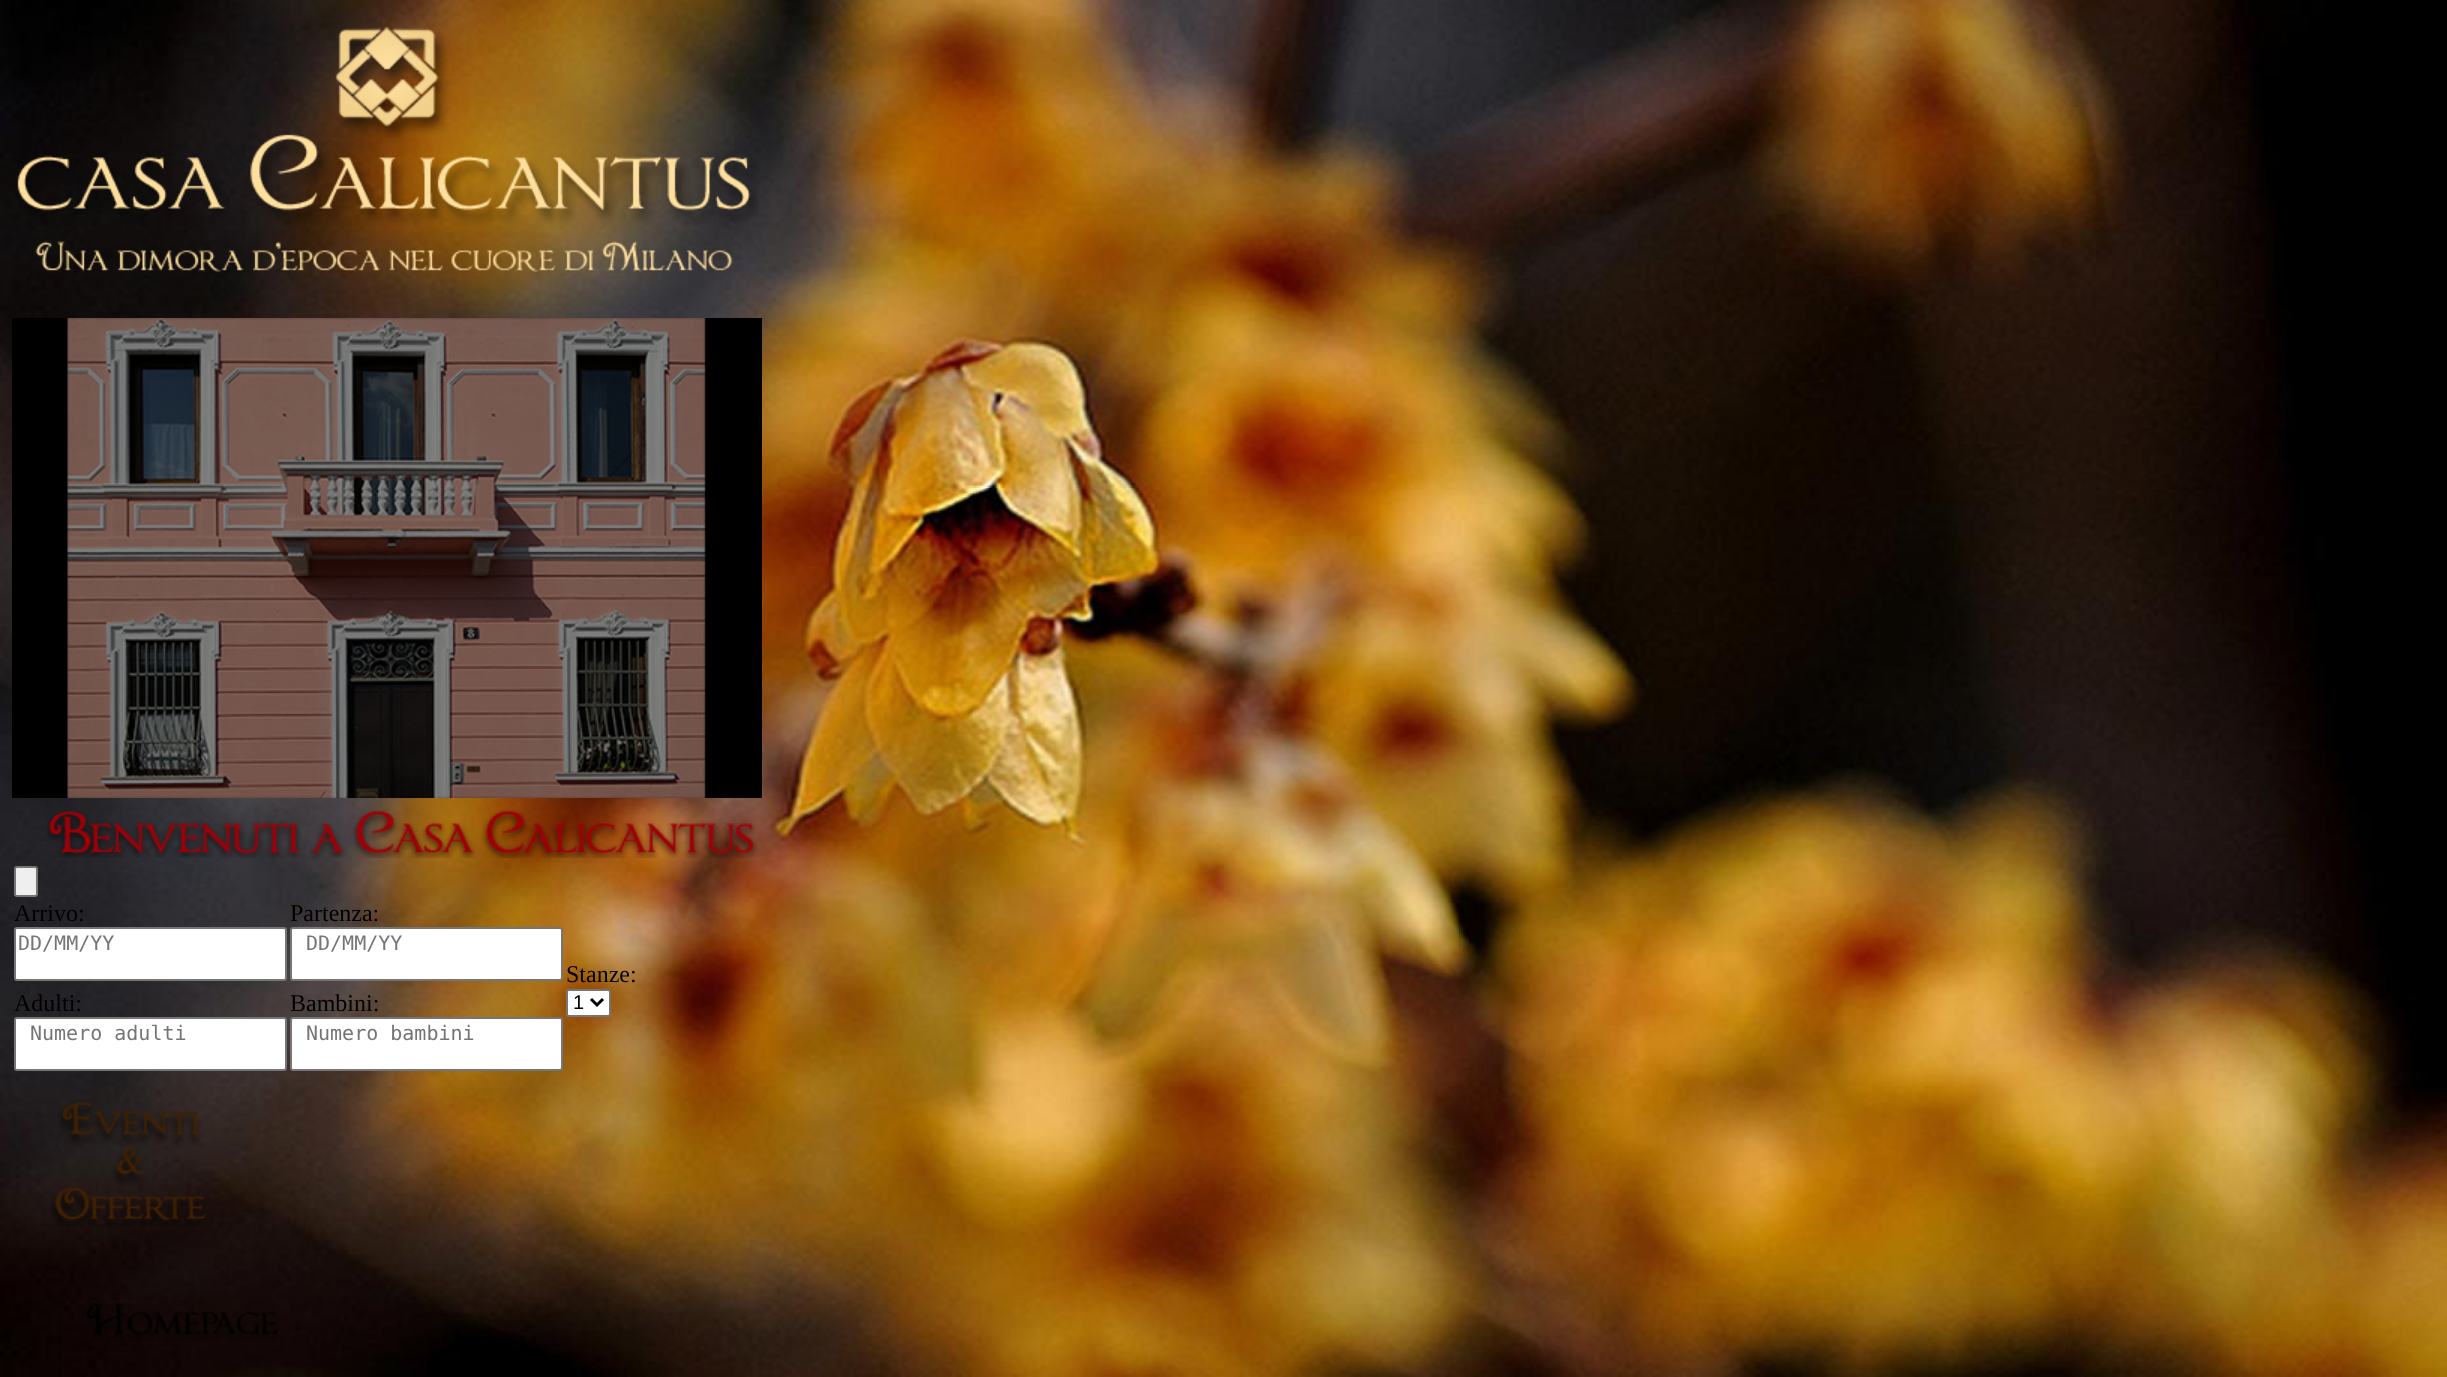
<svg xmlns="http://www.w3.org/2000/svg" xmlns:xlink="http://www.w3.org/1999/xlink" width="2447" height="1377" viewBox="0 0 2447 1377">
<style>
.cls-1{font:24px Liberation Serif;fill:#000000}
.cls-2{font:20px DejaVu Sans Mono;fill:#757575}
.cls-3{font:20px Liberation Sans;fill:#000000}
</style>
<rect width="100%" height="100%" fill="#ffffff"/>
<image xlink:href="image0.png" x="0" y="0" width="2447" height="1377"/>
<image xlink:href="image1.png" x="17" y="26" width="742" height="246"/>
<rect fill="#000000" x="12" y="318" width="750" height="480"/>
<image xlink:href="image2.png" x="67" y="318" width="639" height="480"/>
<image xlink:href="image3.png" x="47" y="809" width="711" height="49"/>
<rect fill="#efefef" stroke="#767676" stroke-width="2" x="15" y="867" width="22" height="29" rx="2"/>
<rect fill="#ffffff" stroke="#767676" stroke-width="2" x="15" y="928" width="271" height="52" rx="2"/>
<rect fill="#ffffff" stroke="#767676" stroke-width="2" x="291" y="928" width="271" height="52" rx="2"/>
<rect fill="#ffffff" stroke="#767676" stroke-width="2" x="567" y="990" width="43" height="26" rx="2"/>
<path fill="none" stroke="#000000" stroke-width="3" d="M591 999L597 1005L603 999"/>
<rect fill="#ffffff" stroke="#767676" stroke-width="2" x="15" y="1018" width="271" height="52" rx="2"/>
<rect fill="#ffffff" stroke="#767676" stroke-width="2" x="291" y="1018" width="271" height="52" rx="2"/>
<image xlink:href="image4.png" x="51" y="1102" width="156" height="125"/>
<image xlink:href="image5.png" x="87" y="1303" width="191" height="37"/>
<text class="cls-1" x="14" y="921">Arrivo:</text>
<text class="cls-2" x="18" y="950">DD/MM/YY</text>
<text class="cls-1" x="290" y="921">Partenza:</text>
<text class="cls-2" x="306" y="950">DD/MM/YY</text>
<text class="cls-1" x="566" y="982">Stanze:</text>
<text class="cls-3" x="573" y="1009">1</text>
<text class="cls-1" x="14" y="1011">Adulti:</text>
<text class="cls-2" x="30" y="1040">Numero adulti</text>
<text class="cls-1" x="290" y="1011">Bambini:</text>
<text class="cls-2" x="306" y="1040">Numero bambini</text>
</svg>
